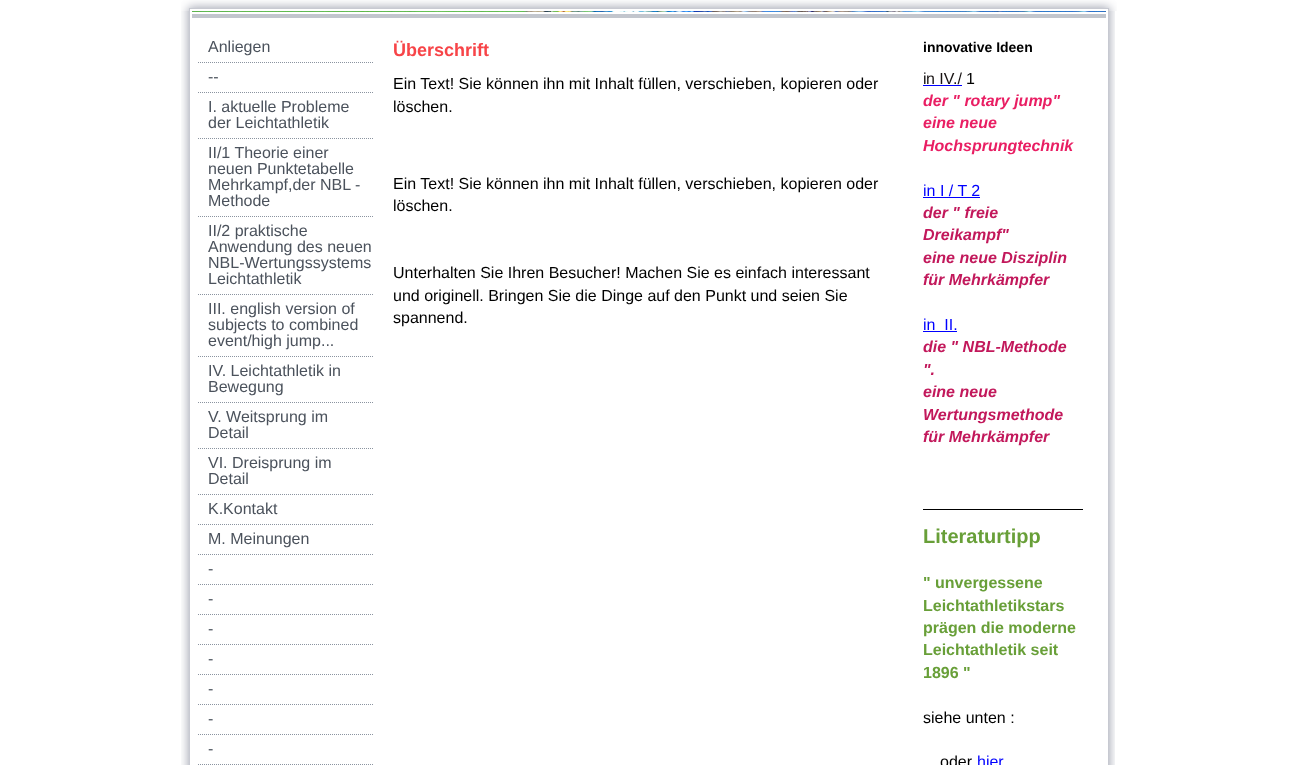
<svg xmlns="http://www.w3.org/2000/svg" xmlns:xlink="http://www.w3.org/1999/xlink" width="1297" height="765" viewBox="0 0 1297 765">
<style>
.cls-1{font:16px Liberation Sans;fill:#4b525c}
.cls-2{font:bold 18px Liberation Sans;fill:#f74448}
.cls-3{font:16px Liberation Sans;fill:#000000}
.cls-4{font:bold 14px Liberation Sans;fill:#000000}
.cls-5{font:16px Liberation Sans;fill:#110f0f}
.cls-6{font:16px Liberation Sans;fill:#171212}
.cls-7{font:italic bold 16px Liberation Sans;fill:#e91e63}
.cls-8{font:16px Liberation Sans;fill:#0000ff}
.cls-9{font:italic bold 16px Liberation Sans;fill:#c2185b}
.cls-10{font:bold 20px Liberation Sans;fill:#689f38}
.cls-11{font:bold 16px Liberation Sans;fill:#689f38}
</style>
<rect width="100%" height="100%" fill="#ffffff"/>
<image xlink:href="image0.png" x="181" y="0" width="936" height="11"/>
<image xlink:href="image1.png" x="181" y="11" width="934" height="754"/>
<rect fill="#c2c6cd" x="192" y="14" width="914" height="4"/>
<image xlink:href="image2.png" x="192" y="11" width="914" height="1"/>
<image xlink:href="image3.png" x="198" y="62" width="175" height="1"/>
<image xlink:href="image3.png" x="198" y="92" width="175" height="1"/>
<image xlink:href="image3.png" x="198" y="138" width="175" height="1"/>
<image xlink:href="image3.png" x="198" y="216" width="175" height="1"/>
<image xlink:href="image3.png" x="198" y="294" width="175" height="1"/>
<image xlink:href="image3.png" x="198" y="356" width="175" height="1"/>
<image xlink:href="image3.png" x="198" y="402" width="175" height="1"/>
<image xlink:href="image3.png" x="198" y="448" width="175" height="1"/>
<image xlink:href="image3.png" x="198" y="494" width="175" height="1"/>
<image xlink:href="image3.png" x="198" y="524" width="175" height="1"/>
<image xlink:href="image3.png" x="198" y="554" width="175" height="1"/>
<image xlink:href="image3.png" x="198" y="584" width="175" height="1"/>
<image xlink:href="image3.png" x="198" y="614" width="175" height="1"/>
<image xlink:href="image3.png" x="198" y="644" width="175" height="1"/>
<image xlink:href="image3.png" x="198" y="674" width="175" height="1"/>
<image xlink:href="image3.png" x="198" y="704" width="175" height="1"/>
<image xlink:href="image3.png" x="198" y="734" width="175" height="1"/>
<image xlink:href="image3.png" x="198" y="764" width="175" height="1"/>
<rect fill="#0000ff" x="923" y="85" width="39" height="1"/>
<rect fill="#0000ff" x="923" y="197" width="57" height="1"/>
<rect fill="#0000ff" x="923" y="331" width="34" height="1"/>
<rect fill="#000000" x="923" y="509" width="160" height="1"/>
<text class="cls-1"><tspan x="208" y="52">Anliegen</tspan><tspan x="208" y="82">--</tspan><tspan x="208" y="112">I. aktuelle Probleme</tspan><tspan x="208" y="128">der Leichtathletik</tspan><tspan x="208" y="158">II/1 Theorie einer</tspan><tspan x="208" y="174">neuen Punktetabelle</tspan><tspan x="208" y="190">Mehrkampf,der NBL -</tspan><tspan x="208" y="206">Methode</tspan><tspan x="208" y="236">II/2 praktische</tspan><tspan x="208" y="252">Anwendung des neuen</tspan><tspan x="208" y="268">NBL-Wertungssystems</tspan><tspan x="208" y="284">Leichtathletik</tspan><tspan x="208" y="314">III. english version of</tspan><tspan x="208" y="330">subjects to combined</tspan><tspan x="208" y="346">event/high jump...</tspan><tspan x="208" y="376">IV. Leichtathletik in</tspan><tspan x="208" y="392">Bewegung</tspan><tspan x="208" y="422">V. Weitsprung im</tspan><tspan x="208" y="438">Detail</tspan><tspan x="208" y="468">VI. Dreisprung im</tspan><tspan x="208" y="484">Detail</tspan><tspan x="208" y="514">K.Kontakt</tspan><tspan x="208" y="544">M. Meinungen</tspan><tspan x="208" y="574">-</tspan><tspan x="208" y="604">-</tspan><tspan x="208" y="634">-</tspan><tspan x="208" y="664">-</tspan><tspan x="208" y="694">-</tspan><tspan x="208" y="724">-</tspan><tspan x="208" y="754">-</tspan></text>
<text class="cls-2" x="393" y="56">Überschrift</text>
<text class="cls-3"><tspan x="393" y="89">Ein Text! Sie können ihn mit Inhalt füllen, verschieben, kopieren oder</tspan><tspan x="393" y="112">löschen.</tspan></text>
<text class="cls-3"><tspan x="393" y="189">Ein Text! Sie können ihn mit Inhalt füllen, verschieben, kopieren oder</tspan><tspan x="393" y="211">löschen.</tspan></text>
<text class="cls-3"><tspan x="393" y="278">Unterhalten Sie Ihren Besucher! Machen Sie es einfach interessant</tspan><tspan x="393" y="301">und originell. Bringen Sie die Dinge auf den Punkt und seien Sie</tspan><tspan x="393" y="323">spannend.</tspan></text>
<text class="cls-4" x="923" y="52">innovative Ideen</text>
<text class="cls-5" x="923" y="84">i</text>
<text class="cls-6" x="926" y="84">n IV./</text>
<text class="cls-3" x="966" y="84">1</text>
<text class="cls-7"><tspan x="923" y="106">der " rotary jump"</tspan><tspan x="923" y="128">eine neue</tspan><tspan x="923" y="151">Hochsprungtechnik</tspan></text>
<text class="cls-8" x="923" y="196">in I / T 2</text>
<text class="cls-9"><tspan x="923" y="218">der " freie</tspan><tspan x="923" y="240">Dreikampf"</tspan><tspan x="923" y="263">eine neue Disziplin</tspan><tspan x="923" y="285">für Mehrkämpfer</tspan></text>
<text class="cls-8" xml:space="preserve" x="923" y="330">in  II.</text>
<text class="cls-9"><tspan x="923" y="352">die " NBL-Methode</tspan><tspan x="923" y="375">".</tspan><tspan x="923" y="397">eine neue</tspan><tspan x="923" y="420">Wertungsmethode</tspan><tspan x="923" y="442">für Mehrkämpfer</tspan></text>
<text class="cls-10" x="923" y="543">Literaturtipp</text>
<text class="cls-11"><tspan x="923" y="588">" unvergessene</tspan><tspan x="923" y="611">Leichtathletikstars</tspan><tspan x="923" y="633">prägen die moderne</tspan><tspan x="923" y="655">Leichtathletik seit</tspan><tspan x="923" y="678">1896 "</tspan></text>
<text class="cls-3" x="923" y="723">siehe unten :</text>
<text class="cls-3" x="940" y="767">oder</text>
<text class="cls-8" x="977" y="767">hier</text>
</svg>
